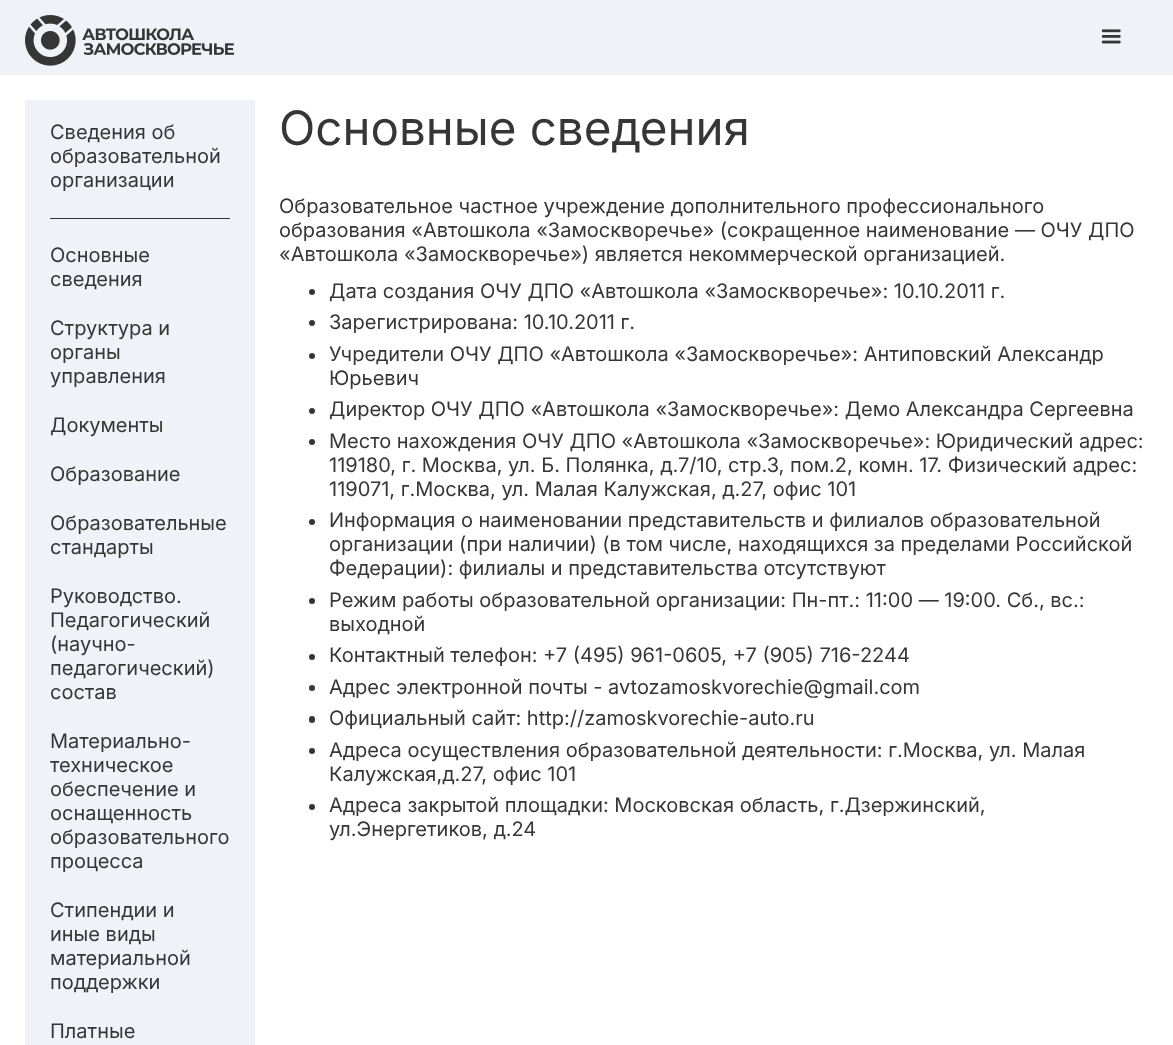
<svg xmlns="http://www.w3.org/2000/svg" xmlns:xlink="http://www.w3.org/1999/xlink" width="1173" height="1045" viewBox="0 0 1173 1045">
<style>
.cls-1{font:20px Inter;fill:#363636}
.cls-2{font:47.5px Inter;fill:#363636}
</style>
<rect width="100%" height="100%" fill="#ffffff"/>
<rect fill="#f0f2f8" x="0" y="0" width="1173" height="75"/>
<image xlink:href="image0.png" x="25" y="15" width="209" height="51"/>
<image xlink:href="image1.png" x="1101" y="29" width="20" height="15"/>
<rect fill="#f0f2f8" x="25" y="100" width="230" height="945"/>
<rect fill="#363636" x="50" y="218" width="180" height="1"/>
<circle fill="#363636" cx="312" cy="292" r="3"/>
<circle fill="#363636" cx="312" cy="323" r="3"/>
<circle fill="#363636" cx="312" cy="356" r="3"/>
<circle fill="#363636" cx="312" cy="411" r="3"/>
<circle fill="#363636" cx="312" cy="442" r="3"/>
<circle fill="#363636" cx="312" cy="522" r="3"/>
<circle fill="#363636" cx="312" cy="601" r="3"/>
<circle fill="#363636" cx="312" cy="657" r="3"/>
<circle fill="#363636" cx="312" cy="688" r="3"/>
<rect fill="#363636" x="309" y="716" width="6" height="7" rx="3"/>
<circle fill="#363636" cx="312" cy="751" r="3"/>
<circle fill="#363636" cx="312" cy="807" r="3"/>
<text class="cls-1"><tspan x="50" y="139">Сведения об</tspan><tspan x="50" y="163">образовательной</tspan><tspan x="50" y="187">организации</tspan></text>
<text class="cls-1"><tspan x="50" y="262">Основные</tspan><tspan x="50" y="286">сведения</tspan></text>
<text class="cls-1"><tspan x="50" y="335">Структура и</tspan><tspan x="50" y="359">органы</tspan><tspan x="50" y="383">управления</tspan></text>
<text class="cls-1" x="50" y="432">Документы</text>
<text class="cls-1" x="50" y="481">Образование</text>
<text class="cls-1"><tspan x="50" y="530">Образовательные</tspan><tspan x="50" y="554">стандарты</tspan></text>
<text class="cls-1"><tspan x="50" y="603">Руководство.</tspan><tspan x="50" y="627">Педагогический</tspan><tspan x="50" y="651">(научно-</tspan><tspan x="50" y="675">педагогический)</tspan><tspan x="50" y="699">состав</tspan></text>
<text class="cls-1"><tspan x="50" y="748">Материально-</tspan><tspan x="50" y="772">техническое</tspan><tspan x="50" y="796">обеспечение и</tspan><tspan x="50" y="820">оснащенность</tspan><tspan x="50" y="844">образовательного</tspan><tspan x="50" y="868">процесса</tspan></text>
<text class="cls-1"><tspan x="50" y="917">Стипендии и</tspan><tspan x="50" y="941">иные виды</tspan><tspan x="50" y="965">материальной</tspan><tspan x="50" y="989">поддержки</tspan></text>
<text class="cls-1" x="50" y="1038">Платные</text>
<text class="cls-2" x="279" y="145">Основные сведения</text>
<text class="cls-1"><tspan x="279" y="213">Образовательное частное учреждение дополнительного профессионального</tspan><tspan x="279" y="237">образования «Автошкола «Замоскворечье» (сокращенное наименование — ОЧУ ДПО</tspan><tspan x="279" y="261">«Автошкола «Замоскворечье») является некоммерческой организацией.</tspan></text>
<text class="cls-1"><tspan x="329" y="298">Дата создания ОЧУ ДПО «Автошкола «Замоскворечье»: 10.10.2011 г.</tspan><tspan x="329" y="329">Зарегистрирована: 10.10.2011 г.</tspan><tspan x="329" y="361">Учредители ОЧУ ДПО «Автошкола «Замоскворечье»: Антиповский Александр</tspan><tspan x="329" y="385">Юрьевич</tspan><tspan x="329" y="416">Директор ОЧУ ДПО «Автошкола «Замоскворечье»: Демо Александра Сергеевна</tspan><tspan x="329" y="448">Место нахождения ОЧУ ДПО «Автошкола «Замоскворечье»: Юридический адрес:</tspan><tspan x="329" y="472">119180, г. Москва, ул. Б. Полянка, д.7/10, стр.3, пом.2, комн. 17. Физический адрес:</tspan><tspan x="329" y="496">119071, г.Москва, ул. Малая Калужская, д.27, офис 101</tspan><tspan x="329" y="527">Информация о наименовании представительств и филиалов образовательной</tspan><tspan x="329" y="551">организации (при наличии) (в том числе, находящихся за пределами Российской</tspan><tspan x="329" y="575">Федерации): филиалы и представительства отсутствуют</tspan><tspan x="329" y="607">Режим работы образовательной организации: Пн-пт.: 11:00 — 19:00. Сб., вс.:</tspan><tspan x="329" y="631">выходной</tspan><tspan x="329" y="662">Контактный телефон: +7 (495) 961-0605, +7 (905) 716-2244</tspan><tspan x="329" y="694">Адрес электронной почты - avtozamoskvorechie@gmail.com</tspan><tspan x="329" y="725">Официальный сайт: http://zamoskvorechie-auto.ru</tspan><tspan x="329" y="757">Адреса осуществления образовательной деятельности: г.Москва, ул. Малая</tspan><tspan x="329" y="781">Калужская,д.27, офис 101</tspan><tspan x="329" y="812">Адреса закрытой площадки: Московская область, г.Дзержинский,</tspan><tspan x="329" y="836">ул.Энергетиков, д.24</tspan></text>
</svg>
